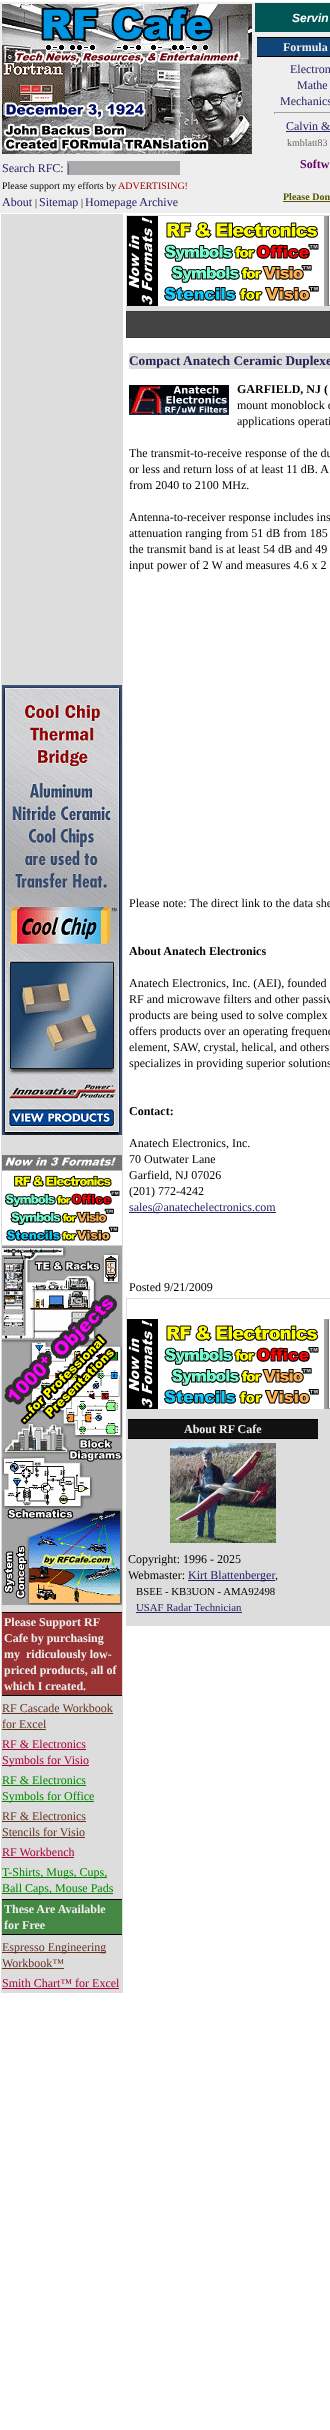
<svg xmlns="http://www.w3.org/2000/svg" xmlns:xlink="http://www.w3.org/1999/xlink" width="330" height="2430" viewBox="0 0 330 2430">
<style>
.cls-1{font:12px Liberation Serif;fill:#222266}
.cls-2{font:10px Liberation Serif;fill:#000000}
.cls-3{font:10px Liberation Serif;fill:#990000}
.cls-4{font:italic bold 12px Liberation Sans;fill:#ffffff}
.cls-5{font:bold 12px Liberation Serif;fill:#eeeeee}
.cls-6{font:10px Liberation Serif;fill:#666666}
.cls-7{font:bold 12px Liberation Serif;fill:#660066}
.cls-8{font:bold 10px Liberation Serif;fill:#555500}
.cls-9{font:bold 13.25px Liberation Serif;fill:#222255}
.cls-10{font:bold 12px Liberation Serif;fill:#000000}
.cls-11{font:12px Liberation Serif;fill:#000000}
.cls-12{font:10.75px Liberation Serif;fill:#000000}
.cls-13{font:10.75px Liberation Serif;fill:#222266}
.cls-14{font:12px Liberation Serif;fill:#663322}
.cls-15{font:12px Liberation Serif;fill:#aa0033}
.cls-16{font:12px Liberation Serif;fill:#008800}
</style>
<rect width="100%" height="100%" fill="#ffffff"/>
<rect fill="#eeeeee" x="0" y="2" width="330" height="211"/>
<image xlink:href="image0.png" x="2" y="4" width="250" height="150"/>
<rect fill="#aaaaaa" x="67" y="161" width="113" height="14"/>
<rect fill="#005555" x="255" y="3" width="75" height="29"/>
<rect fill="#114477" x="257" y="38" width="73" height="18"/>
<rect fill="#000000" x="257" y="37" width="73" height="1"/>
<rect fill="#000000" x="257" y="56" width="73" height="1"/>
<rect fill="#9f9f9f" x="274" y="112" width="56" height="1"/>
<rect fill="#9f9f9f" x="274" y="112" width="1" height="2"/>
<rect fill="#222266" x="286" y="131" width="44" height="1"/>
<rect fill="#555500" x="283" y="201" width="47" height="1"/>
<rect fill="#dddddd" x="126" y="215" width="204" height="96"/>
<image xlink:href="image1.png" x="127" y="216" width="203" height="90"/>
<rect fill="#3b3938" x="126" y="311" width="204" height="27"/>
<rect fill="#444444" x="127" y="312" width="203" height="25"/>
<rect fill="#dddddd" x="129" y="353" width="201" height="16"/>
<image xlink:href="image2.png" x="129" y="385" width="100" height="30"/>
<rect fill="#222266" x="129" y="1212" width="147" height="1"/>
<rect fill="#dddddd" x="126" y="1298" width="204" height="328"/>
<rect fill="#ffffff" x="127" y="1299" width="203" height="20"/>
<image xlink:href="image1.png" x="127" y="1319" width="203" height="90"/>
<rect fill="#111111" x="128" y="1420" width="190" height="18"/>
<rect fill="#000000" x="128" y="1419" width="190" height="1"/>
<rect fill="#000000" x="128" y="1438" width="190" height="1"/>
<image xlink:href="image3.png" x="170" y="1443" width="106" height="100"/>
<rect fill="#222266" x="188" y="1580" width="87" height="1"/>
<rect fill="#222266" x="136" y="1612" width="106" height="1"/>
<rect fill="#dddddd" x="1" y="214" width="122" height="1779"/>
<image xlink:href="image4.png" x="2" y="685" width="120" height="450"/>
<image xlink:href="image5.png" x="2" y="1155" width="120" height="450"/>
<rect fill="#993333" x="2" y="1613" width="120" height="82"/>
<rect fill="#000000" x="2" y="1612" width="120" height="1"/>
<rect fill="#000000" x="2" y="1695" width="120" height="1"/>
<rect fill="#663322" x="2" y="1713" width="111" height="1"/>
<rect fill="#663322" x="2" y="1729" width="44" height="1"/>
<rect fill="#aa0033" x="2" y="1749" width="84" height="1"/>
<rect fill="#aa0033" x="2" y="1765" width="87" height="1"/>
<rect fill="#008800" x="2" y="1785" width="84" height="1"/>
<rect fill="#008800" x="2" y="1801" width="92" height="1"/>
<rect fill="#663322" x="2" y="1821" width="84" height="1"/>
<rect fill="#663322" x="2" y="1837" width="83" height="1"/>
<rect fill="#aa0033" x="2" y="1857" width="72" height="1"/>
<rect fill="#008800" x="2" y="1877" width="105" height="1"/>
<rect fill="#008800" x="2" y="1893" width="111" height="1"/>
<rect fill="#448844" x="2" y="1900" width="120" height="34"/>
<rect fill="#000000" x="2" y="1899" width="120" height="1"/>
<rect fill="#000000" x="2" y="1934" width="120" height="1"/>
<rect fill="#663322" x="2" y="1952" width="104" height="1"/>
<rect fill="#663322" x="2" y="1968" width="62" height="1"/>
<rect fill="#aa0033" x="2" y="1988" width="117" height="1"/>
<text class="cls-1" x="2" y="172">Search RFC:</text>
<text class="cls-1" x="67" y="172">|</text>
<text class="cls-2" x="2" y="189">Please support my efforts by</text>
<text class="cls-3" x="118" y="189">ADVERTISING!</text>
<text class="cls-1" x="2" y="206">About</text>
<text class="cls-2" x="35" y="206">|</text>
<text class="cls-1" x="39" y="206">Sitemap</text>
<text class="cls-2" x="81" y="206">|</text>
<text class="cls-1" x="85" y="206">Homepage Archive</text>
<text class="cls-4" x="292" y="22">Servin</text>
<text class="cls-5" x="283" y="51">Formula</text>
<text class="cls-1" x="290" y="73">Electron</text>
<text class="cls-1" x="297" y="89">Mathe</text>
<text class="cls-1" x="280" y="105">Mechanics</text>
<text class="cls-1" x="286" y="130">Calvin &amp;</text>
<text class="cls-6" x="287" y="146">kmblatt83</text>
<text class="cls-7" x="300" y="168">Softw</text>
<text class="cls-8" x="283" y="200">Please Don</text>
<text class="cls-9" x="129" y="365">Compact Anatech Ceramic Duplexe</text>
<text class="cls-10" x="237" y="393">GARFIELD, NJ (</text>
<text class="cls-11"><tspan x="237" y="409">mount monoblock c</tspan><tspan x="237" y="425">applications operati</tspan></text>
<text class="cls-11"><tspan x="129" y="457">The transmit-to-receive response of the du</tspan><tspan x="129" y="473">or less and return loss of at least 11 dB. A</tspan><tspan x="129" y="489">from 2040 to 2100 MHz.</tspan></text>
<text class="cls-11"><tspan x="129" y="521">Antenna-to-receiver response includes ins</tspan><tspan x="129" y="537">attenuation ranging from 51 dB from 185</tspan><tspan x="129" y="553">the transmit band is at least 54 dB and 49</tspan><tspan x="129" y="569">input power of 2 W and measures 4.6 x 2</tspan></text>
<text class="cls-11" x="129" y="907">Please note: The direct link to the data she</text>
<text class="cls-10" x="129" y="955">About Anatech Electronics</text>
<text class="cls-11"><tspan x="129" y="987">Anatech Electronics, Inc. (AEI), founded</tspan><tspan x="129" y="1003">RF and microwave filters and other passiv</tspan><tspan x="129" y="1019">products are being used to solve complex</tspan><tspan x="129" y="1035">offers products over an operating frequenc</tspan><tspan x="129" y="1051">element, SAW, crystal, helical, and others</tspan><tspan x="129" y="1067">specializes in providing superior solutions</tspan></text>
<text class="cls-10" x="129" y="1115">Contact:</text>
<text class="cls-11"><tspan x="129" y="1147">Anatech Electronics, Inc.</tspan><tspan x="129" y="1163">70 Outwater Lane</tspan><tspan x="129" y="1179">Garfield, NJ 07026</tspan><tspan x="129" y="1195">(201) 772-4242</tspan></text>
<text class="cls-1" x="129" y="1211">sales@anatechelectronics.com</text>
<text class="cls-11" x="129" y="1291">Posted 9/21/2009</text>
<text class="cls-5" x="184" y="1433">About RF Cafe</text>
<text class="cls-11"><tspan x="128" y="1563">Copyright: 1996 - 2025</tspan><tspan x="128" y="1579">Webmaster:</tspan></text>
<text class="cls-1" x="188" y="1579">Kirt Blattenberger</text>
<text class="cls-11" x="275" y="1579">,</text>
<text class="cls-12" x="136" y="1595">BSEE - KB3UON - AMA92498</text>
<text class="cls-13" x="136" y="1611">USAF Radar Technician</text>
<text class="cls-5" xml:space="preserve"><tspan x="4" y="1626">Please Support RF</tspan><tspan x="4" y="1642">Cafe by purchasing</tspan><tspan x="4" y="1658">my  ridiculously low-</tspan><tspan x="4" y="1674">priced products, all of</tspan><tspan x="4" y="1690">which I created.</tspan></text>
<text class="cls-14"><tspan x="2" y="1712">RF Cascade Workbook</tspan><tspan x="2" y="1728">for Excel</tspan></text>
<text class="cls-15"><tspan x="2" y="1748">RF &amp; Electronics</tspan><tspan x="2" y="1764">Symbols for Visio</tspan></text>
<text class="cls-16"><tspan x="2" y="1784">RF &amp; Electronics</tspan><tspan x="2" y="1800">Symbols for Office</tspan></text>
<text class="cls-14"><tspan x="2" y="1820">RF &amp; Electronics</tspan><tspan x="2" y="1836">Stencils for Visio</tspan></text>
<text class="cls-15" x="2" y="1856">RF Workbench</text>
<text class="cls-16"><tspan x="2" y="1876">T-Shirts, Mugs, Cups,</tspan><tspan x="2" y="1892">Ball Caps, Mouse Pads</tspan></text>
<text class="cls-5"><tspan x="4" y="1913">These Are Available</tspan><tspan x="4" y="1929">for Free</tspan></text>
<text class="cls-14"><tspan x="2" y="1951">Espresso Engineering</tspan><tspan x="2" y="1967">Workbook™</tspan></text>
<text class="cls-15" x="2" y="1987">Smith Chart™ for Excel</text>
</svg>
